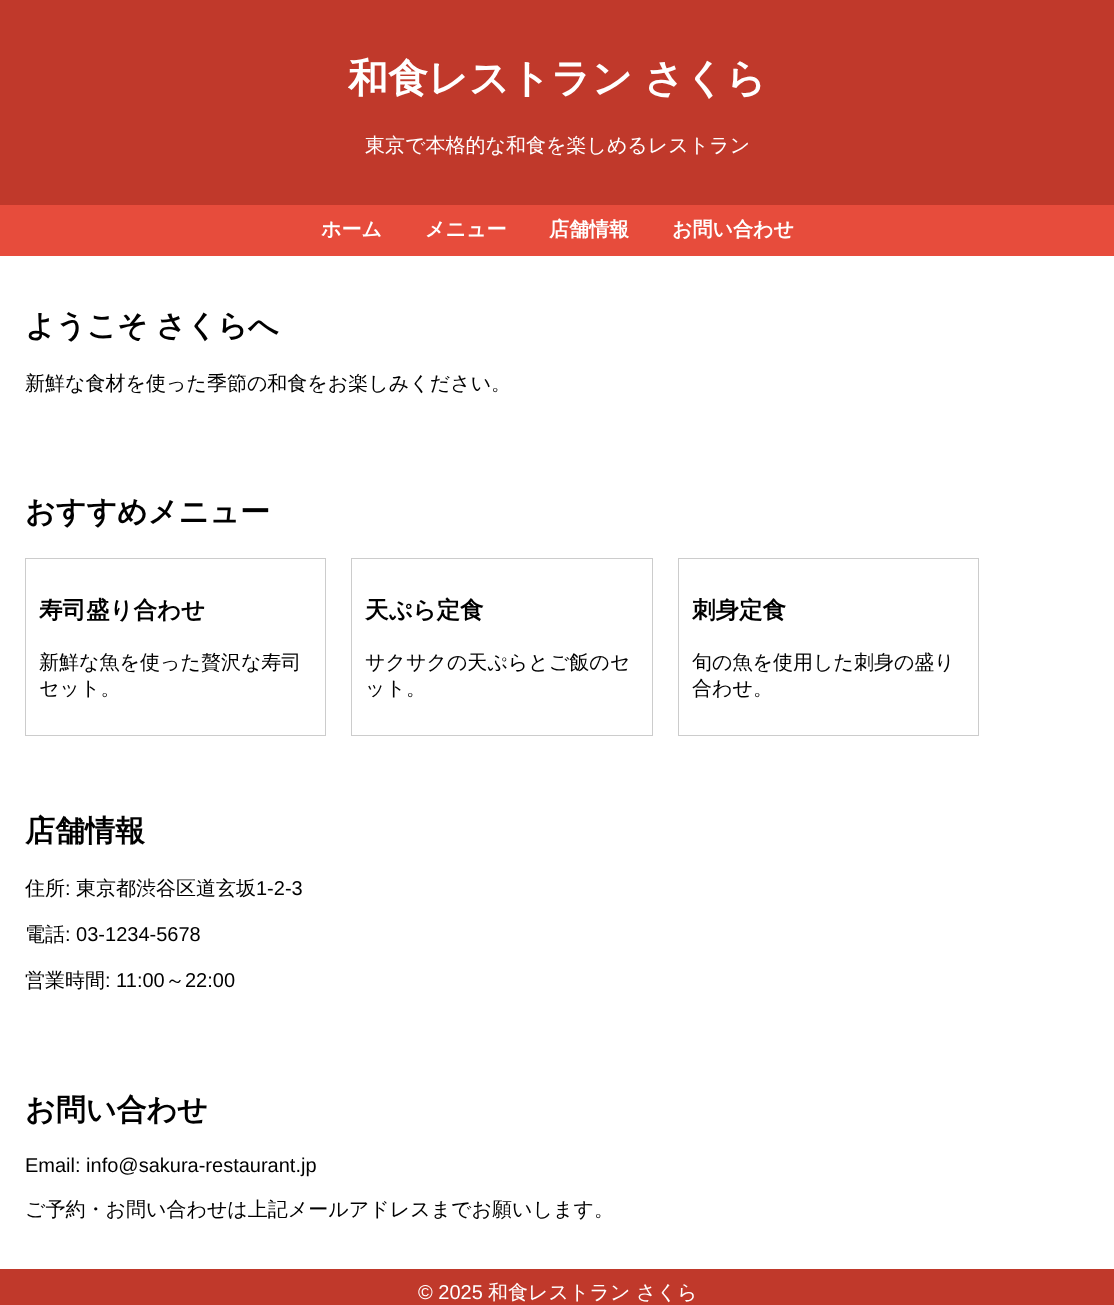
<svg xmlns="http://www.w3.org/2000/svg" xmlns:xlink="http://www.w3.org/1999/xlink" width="1114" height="1305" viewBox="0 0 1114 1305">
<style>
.cls-1{font:bold 40px WenQuanYi Zen Hei;fill:#ffffff}
.cls-2{font:500 20px WenQuanYi Zen Hei;fill:#ffffff}
.cls-3{font:bold 20px WenQuanYi Zen Hei;fill:#ffffff}
.cls-4{font:bold 30px WenQuanYi Zen Hei;fill:#000000}
.cls-5{font:500 20px WenQuanYi Zen Hei;fill:#000000}
.cls-6{font:bold 23.5px WenQuanYi Zen Hei;fill:#000000}
.cls-7{font:20px Liberation Sans;fill:#000000}
.cls-8{font:20px Liberation Sans;fill:#ffffff}
</style>
<rect width="100%" height="100%" fill="#ffffff"/>
<rect fill="#c0392b" x="0" y="0" width="1114" height="205"/>
<rect fill="#e74c3c" x="0" y="205" width="1114" height="51"/>
<rect fill="none" stroke="#cccccc" x="25.5" y="558.5" width="300" height="177"/>
<rect fill="none" stroke="#cccccc" x="351.5" y="558.5" width="301" height="177"/>
<rect fill="none" stroke="#cccccc" x="678.5" y="558.5" width="300" height="177"/>
<rect fill="#c0392b" x="0" y="1269" width="1114" height="36"/>
<text class="cls-1" x="348" y="92" word-spacing="-1">和食レストラン さくら</text>
<text class="cls-2" x="365" y="152">東京で本格的な和食を楽しめるレストラン</text>
<text class="cls-3" x="321" y="236">ホーム</text>
<text class="cls-3" x="425" y="236">メニュー</text>
<text class="cls-3" x="549" y="236">店舗情報</text>
<text class="cls-3" x="672" y="236">お問い合わせ</text>
<text class="cls-4" x="25" y="336" word-spacing="-1">ようこそ さくらへ</text>
<text class="cls-5" x="25" y="390">新鮮な食材を使った季節の和食をお楽しみください。</text>
<text class="cls-4" x="25" y="522">おすすめメニュー</text>
<text class="cls-6" x="39" y="618">寿司盛り合わせ</text>
<text class="cls-5"><tspan x="39" y="669">新鮮な魚を使った贅沢な寿司</tspan><tspan x="39" y="695">セット。</tspan></text>
<text class="cls-6" x="365" y="618">天ぷら定食</text>
<text class="cls-5"><tspan x="365" y="669">サクサクの天ぷらとご飯のセ</tspan><tspan x="365" y="695">ット。</tspan></text>
<text class="cls-6" x="692" y="618">刺身定食</text>
<text class="cls-5"><tspan x="692" y="669">旬の魚を使用した刺身の盛り</tspan><tspan x="692" y="695">合わせ。</tspan></text>
<text class="cls-4" x="25" y="841">店舗情報</text>
<text class="cls-5" x="25" y="895">住所</text>
<text class="cls-7" x="65" y="895">:</text>
<text class="cls-5" x="76" y="895">東京都渋谷区道玄坂</text>
<text class="cls-7" x="256" y="895">1-2-3</text>
<text class="cls-5" x="25" y="941">電話</text>
<text class="cls-7" x="65" y="941">: 03-1234-5678</text>
<text class="cls-5" x="25" y="987">営業時間</text>
<text class="cls-7" x="105" y="987">: 11:00</text>
<text class="cls-5" x="165" y="987">～</text>
<text class="cls-7" x="185" y="987">22:00</text>
<text class="cls-4" x="25" y="1120">お問い合わせ</text>
<text class="cls-7" x="25" y="1172">Email: info@sakura-restaurant.jp</text>
<text class="cls-5" x="25" y="1216">ご予約・お問い合わせは上記メールアドレスまでお願いします。</text>
<text class="cls-8" x="418" y="1299">© 2025</text>
<text class="cls-2" x="488" y="1299">和食レストラン</text>
<text class="cls-2" x="636" y="1299">さくら</text>
</svg>
